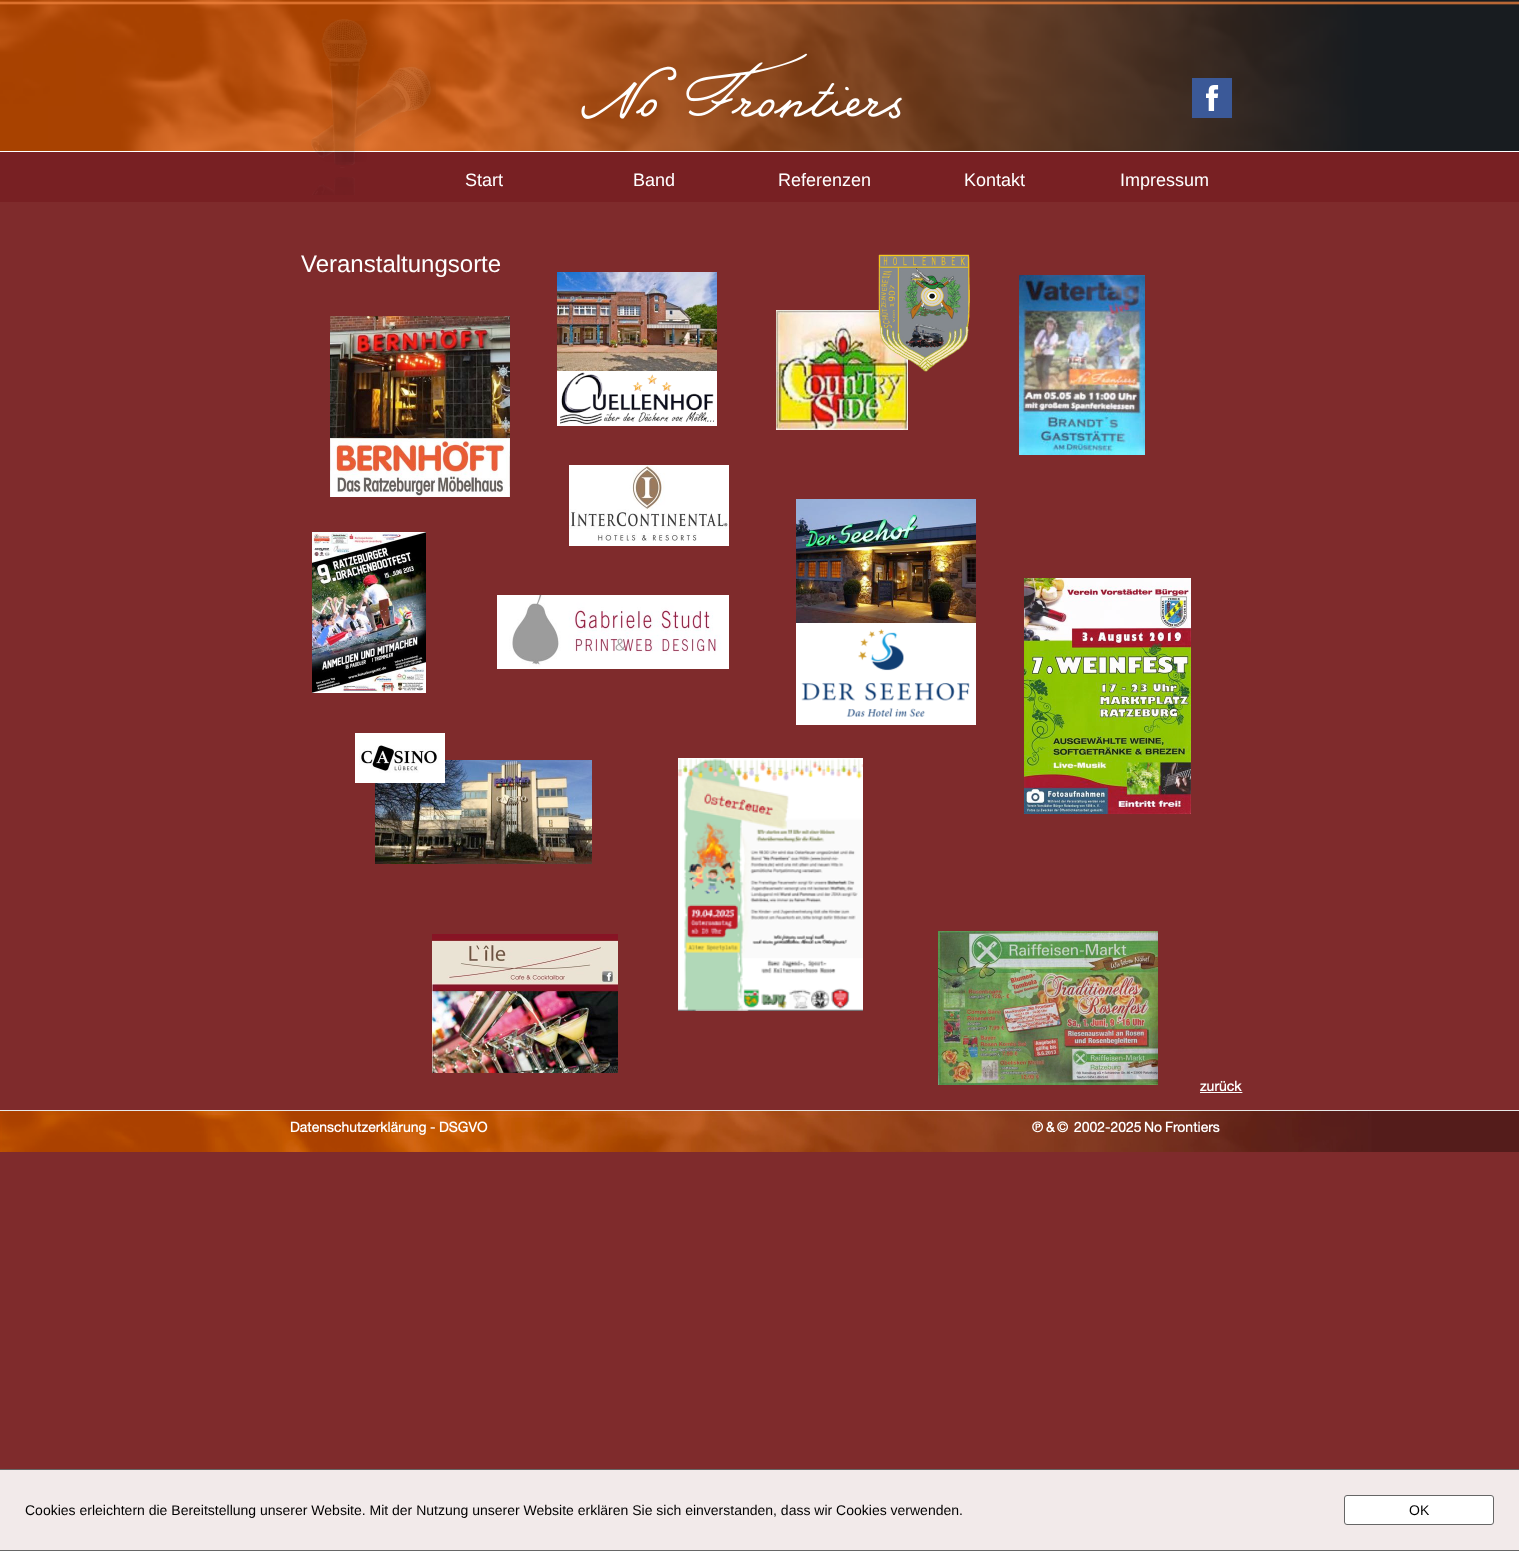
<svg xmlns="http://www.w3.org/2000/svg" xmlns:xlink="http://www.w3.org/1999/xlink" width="1519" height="1551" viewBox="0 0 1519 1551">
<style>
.cls-1{font:18px Liberation Sans;fill:#ffffff}
.cls-2{font:24px Liberation Sans;fill:#ffffff}
.cls-3{font:14px Liberation Sans;fill:#000000}
</style>
<rect width="100%" height="100%" fill="#7f2b2c"/>
<image xlink:href="image0.png" x="0" y="0" width="1519" height="151"/>
<rect fill="#ffffff" x="0" y="151" width="1519" height="1"/>
<rect fill="#3b5998" x="1192" y="78" width="40" height="40"/>
<image xlink:href="image1.png" x="1206" y="85" width="13" height="26"/>
<rect fill="#782023" x="0" y="152" width="1519" height="50"/>
<image xlink:href="image3.png" x="319" y="21" width="117" height="141"/>
<image xlink:href="image2.png" x="311" y="19" width="120" height="149"/>
<image xlink:href="image4.png" x="312" y="177" width="43" height="18"/>
<image xlink:href="image5.png" x="581" y="53" width="321" height="66"/>
<image xlink:href="image6.png" x="557" y="272" width="160" height="99"/>
<rect fill="#ffffff" x="557" y="371" width="160" height="55"/>
<image xlink:href="image7.png" x="560" y="372" width="155" height="53"/>
<image xlink:href="image8.png" x="776" y="310" width="132" height="120"/>
<image xlink:href="image9.png" x="878" y="254" width="92" height="118"/>
<image xlink:href="image10.png" x="1019" y="275" width="126" height="180"/>
<image xlink:href="image11.png" x="330" y="316" width="180" height="122"/>
<image xlink:href="image12.png" x="330" y="438" width="180" height="59"/>
<image xlink:href="image13.png" x="312" y="532" width="114" height="161"/>
<image xlink:href="image14.png" x="569" y="465" width="160" height="81"/>
<image xlink:href="image15.png" x="796" y="499" width="180" height="124"/>
<image xlink:href="image16.png" x="796" y="623" width="180" height="102"/>
<image xlink:href="image17.png" x="1024" y="578" width="167" height="236"/>
<image xlink:href="image18.png" x="497" y="595" width="232" height="74"/>
<image xlink:href="image20.png" x="375" y="760" width="217" height="104"/>
<image xlink:href="image19.png" x="355" y="733" width="90" height="50"/>
<image xlink:href="image21.png" x="678" y="758" width="185" height="253"/>
<image xlink:href="image22.png" x="938" y="931" width="220" height="154"/>
<image xlink:href="image23.png" x="432" y="934" width="186" height="139"/>
<image xlink:href="image24.png" x="1200" y="1080" width="43" height="13"/>
<image xlink:href="image25.png" x="0" y="1111" width="1519" height="41"/>
<rect fill="#e8e8e8" x="0" y="1110" width="1519" height="1"/>
<image xlink:href="image26.png" x="290" y="1121" width="198" height="14"/>
<image xlink:href="image27.png" x="1032" y="1121" width="188" height="12"/>
<rect fill="#f2eaea" x="0" y="1470" width="1519" height="80"/>
<rect fill="#666666" x="0" y="1469" width="1519" height="1"/>
<rect fill="#666666" x="0" y="1550" width="1519" height="1"/>
<rect fill="#ffffff" stroke="#666666" x="1344.5" y="1495.5" width="149" height="29" rx="2.5"/>
<text class="cls-1" x="465" y="186">Start</text>
<text class="cls-1" x="633" y="186">Band</text>
<text class="cls-1" x="778" y="186">Referenzen</text>
<text class="cls-1" x="964" y="186">Kontakt</text>
<text class="cls-1" x="1120" y="186">Impressum</text>
<text class="cls-2" x="301" y="272">Veranstaltungsorte</text>
<text class="cls-3" x="25" y="1515">Cookies erleichtern die Bereitstellung unserer Website. Mit der Nutzung unserer Website erklären Sie sich einverstanden, dass wir Cookies verwenden.</text>
<text class="cls-3" x="1409" y="1515">OK</text>
</svg>
